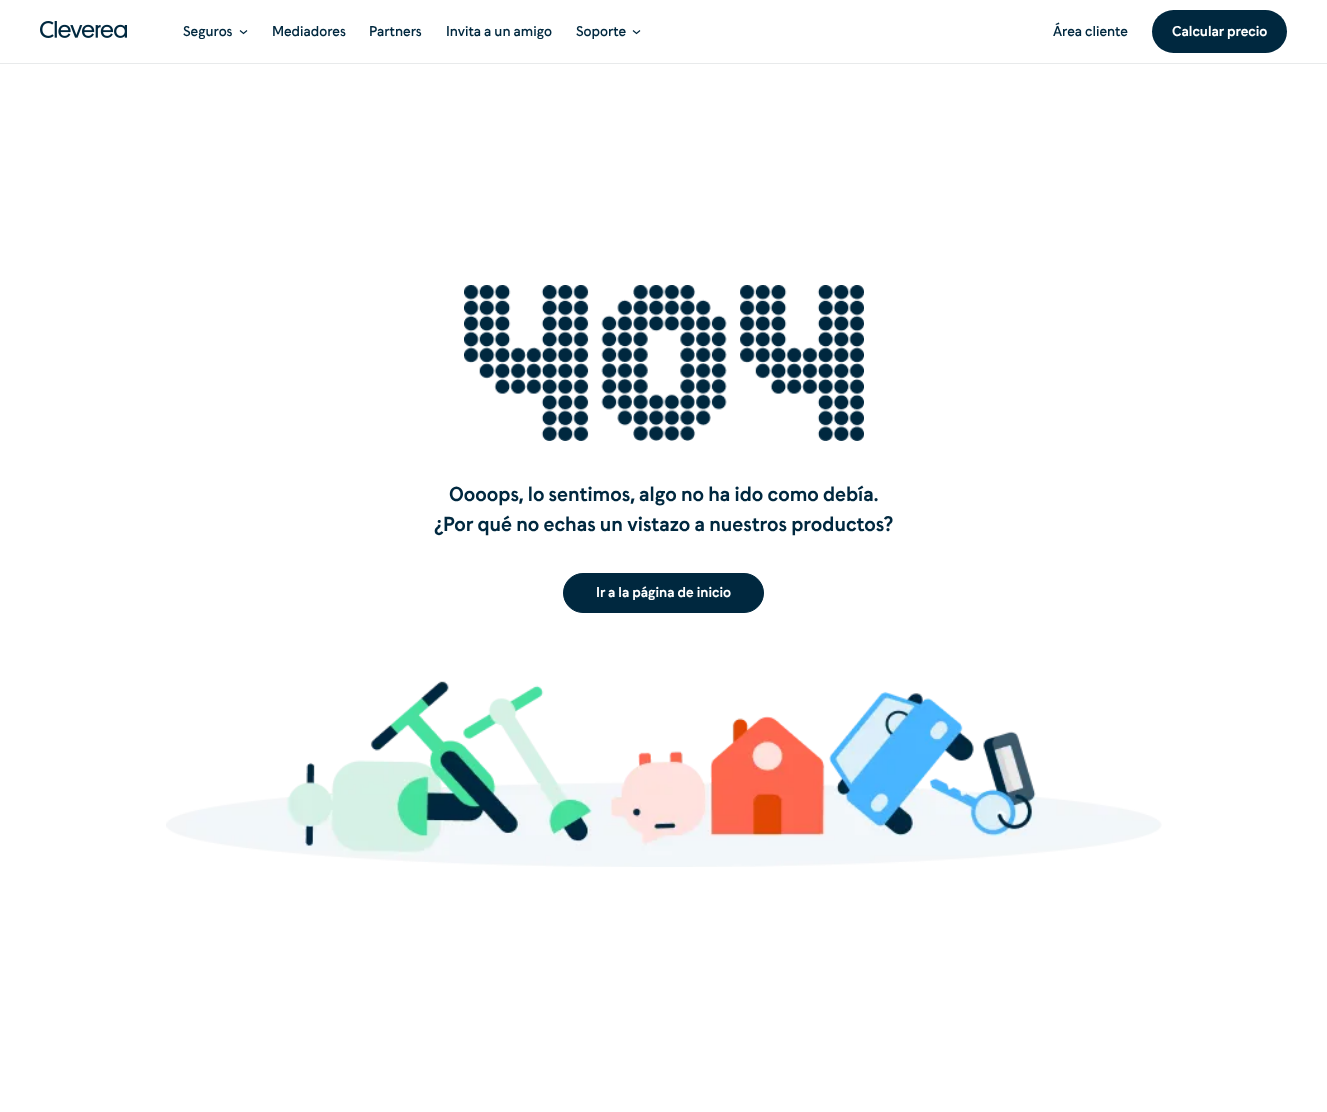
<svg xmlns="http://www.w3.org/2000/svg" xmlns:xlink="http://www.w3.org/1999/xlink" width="1327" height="1112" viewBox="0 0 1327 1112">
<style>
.cls-1{font:600 14px 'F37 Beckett';fill:#00283f}
.cls-2{font:bold 14px 'F37 Beckett';fill:#ffffff}
.cls-3{font:bold 20px 'F37 Beckett';fill:#00283f}
</style>
<rect width="100%" height="100%" fill="#ffffff"/>
<rect fill="#e8eaeb" x="0" y="63" width="1327" height="1"/>
<image xlink:href="image0.png" x="40" y="21" width="87" height="17"/>
<path fill="none" stroke="#00283f" stroke-width="1.2" d="M240 30.5L243.5 33.5L247 30.5"/>
<path fill="none" stroke="#00283f" stroke-width="1.2" d="M633 30.5L636.5 33.5L640 30.5"/>
<rect fill="#00283f" x="1152" y="10" width="135" height="43" rx="21.5"/>
<image xlink:href="image1.png" x="464" y="285" width="400" height="156"/>
<rect fill="#00283f" stroke="#00283f" x="563.5" y="573.5" width="200" height="39" rx="19.5"/>
<image xlink:href="image2.png" x="166" y="681" width="996" height="186"/>
<text class="cls-1" x="183" y="36">Seguros</text>
<text class="cls-1" x="272" y="36">Mediadores</text>
<text class="cls-1" x="369" y="36">Partners</text>
<text class="cls-1" x="446" y="36">Invita a un amigo</text>
<text class="cls-1" x="576" y="36">Soporte</text>
<text class="cls-1" x="1053" y="36">Área cliente</text>
<text class="cls-2" x="1172" y="36">Calcular precio</text>
<text class="cls-3" x="449" y="501">Oooops, lo sentimos, algo no ha ido como debía.</text>
<text class="cls-3" x="434" y="531">¿Por qué no echas un vistazo a nuestros productos?</text>
<text class="cls-2" x="596" y="597">Ir a la página de inicio</text>
</svg>
